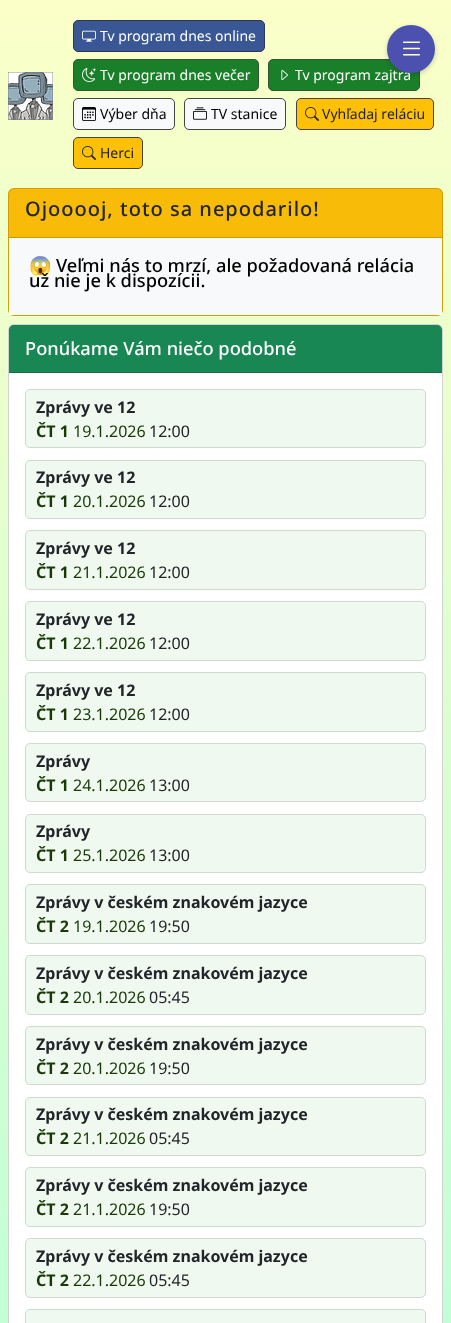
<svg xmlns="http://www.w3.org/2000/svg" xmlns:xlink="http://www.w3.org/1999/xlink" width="451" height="1323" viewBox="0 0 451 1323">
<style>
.cls-1{font:14px Noto Sans;fill:#ffffff}
.cls-2{font:14px Noto Sans;fill:#000000}
.cls-3{font:14px Noto Sans;fill:#212529}
.cls-4{font:500 20px Noto Sans;letter-spacing:1px;fill:#212529}
.cls-5{font:18.25px Noto Color Emoji;fill:#000000}
.cls-6{font:500 18.25px Noto Sans;fill:#000000}
.cls-7{font:500 18.25px Noto Sans;fill:#ffffff}
.cls-8{font:bold 16px Noto Sans;fill:#212529}
.cls-9{font:bold 16px Noto Sans;fill:#193906}
.cls-10{font:16px Noto Sans;fill:#193906}
.cls-11{font:16px Noto Sans;fill:#212529}
</style>
<defs>
<linearGradient id="g1" gradientUnits="userSpaceOnUse" x1="225" y1="0" x2="226" y2="1323"><stop offset="0" stop-color="#fbffc8"/><stop offset="1" stop-color="#c2ffd7"/></linearGradient>
</defs>
<rect width="100%" height="100%" fill="#ffffff"/>
<rect fill="url(#g1)" x="0" y="0" width="451" height="1323"/>
<rect fill="#1a7f29" stroke="#335533" x="268.5" y="59.5" width="151" height="31" rx="4.5"/>
<rect fill="#000000" fill-opacity="0.2" filter="blur(2.5px)" x="387" y="27" width="48" height="48" rx="24"/>
<image xlink:href="image1.png" x="8" y="72" width="45" height="48"/>
<rect fill="#395695" stroke="#333355" x="73.5" y="20.5" width="191" height="31" rx="4.5"/>
<image xlink:href="image2.png" x="82" y="30" width="14" height="12"/>
<rect fill="#1a7f29" stroke="#335533" x="73.5" y="59.5" width="185" height="31" rx="4.5"/>
<image xlink:href="image3.png" x="82" y="68" width="14" height="14"/>
<image xlink:href="image4.png" x="281" y="70" width="7" height="10"/>
<rect fill="#f8f9fa" stroke="#444444" x="73.5" y="98.5" width="101" height="31" rx="4.5"/>
<image xlink:href="image5.png" x="82" y="107" width="14" height="14"/>
<rect fill="#f8f9fa" stroke="#444444" x="184.5" y="98.5" width="101" height="31" rx="4.5"/>
<image xlink:href="image6.png" x="193" y="107" width="14" height="13"/>
<rect fill="#ffc107" stroke="#444444" x="296.5" y="98.5" width="137" height="31" rx="4.5"/>
<image xlink:href="image7.png" x="305" y="107" width="14" height="14"/>
<rect fill="#ffc107" stroke="#444444" x="73.5" y="137.5" width="69" height="31" rx="4.5"/>
<image xlink:href="image7.png" x="82" y="146" width="14" height="14"/>
<rect fill="#ffc107" x="8" y="188" width="435" height="128" rx="6"/>
<rect fill="none" stroke="#000000" stroke-opacity="0.18" x="8.5" y="188.5" width="434" height="127" rx="5.5"/>
<rect fill="#212529" fill-opacity="0.03" x="9" y="189" width="433" height="48"/>
<rect fill="#cd9b07" x="9" y="237" width="433" height="1"/>
<rect fill="#f8f9fa" x="9" y="238" width="433" height="77"/>
<rect fill="#ffffff" x="8" y="324" width="435" height="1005" rx="6"/>
<rect fill="none" stroke="#000000" stroke-opacity="0.18" x="8.5" y="324.5" width="434" height="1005" rx="5.5"/>
<path fill="#198754" d="M14 325H437C440 325 442 327 442 330V373H9V330C9 327 11 325 14 325Z"/>
<rect fill="#156f45" x="9" y="372" width="433" height="1"/>
<rect fill="#f0f9f0" stroke="#d0d9d0" x="25.5" y="389.5" width="400" height="58" rx="4.5"/>
<rect fill="#f0f9f0" stroke="#d0d9d0" x="25.5" y="460.5" width="400" height="58" rx="4.5"/>
<rect fill="#f0f9f0" stroke="#d0d9d0" x="25.5" y="530.5" width="400" height="59" rx="4.5"/>
<rect fill="#f0f9f0" stroke="#d0d9d0" x="25.5" y="601.5" width="400" height="59" rx="4.5"/>
<rect fill="#f0f9f0" stroke="#d0d9d0" x="25.5" y="672.5" width="400" height="59" rx="4.5"/>
<rect fill="#f0f9f0" stroke="#d0d9d0" x="25.5" y="743.5" width="400" height="58" rx="4.5"/>
<rect fill="#f0f9f0" stroke="#d0d9d0" x="25.5" y="814.5" width="400" height="58" rx="4.5"/>
<rect fill="#f0f9f0" stroke="#d0d9d0" x="25.5" y="884.5" width="400" height="59" rx="4.5"/>
<rect fill="#f0f9f0" stroke="#d0d9d0" x="25.5" y="955.5" width="400" height="59" rx="4.5"/>
<rect fill="#f0f9f0" stroke="#d0d9d0" x="25.5" y="1026.5" width="400" height="58" rx="4.5"/>
<rect fill="#f0f9f0" stroke="#d0d9d0" x="25.5" y="1097.5" width="400" height="58" rx="4.5"/>
<rect fill="#f0f9f0" stroke="#d0d9d0" x="25.5" y="1167.5" width="400" height="59" rx="4.5"/>
<rect fill="#f0f9f0" stroke="#d0d9d0" x="25.5" y="1238.5" width="400" height="59" rx="4.5"/>
<rect fill="#f0f9f0" stroke="#d0d9d0" x="25.5" y="1309.5" width="400" height="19" rx="4.5"/>
<text class="cls-1" x="100" y="41">Tv program dnes online</text>
<text class="cls-1" x="100" y="80">Tv program dnes večer</text>
<text class="cls-1" x="295" y="80">Tv program zajtra</text>
<circle fill="#4c50af" cx="411" cy="49" r="24"/>
<image xlink:href="image0.png" x="403" y="41" width="17" height="15"/>
<text class="cls-2" x="100" y="119">Výber dňa</text>
<text class="cls-2" x="211" y="119">TV stanice</text>
<text class="cls-3" x="322" y="119">Vyhľadaj reláciu</text>
<text class="cls-3" x="100" y="158">Herci</text>
<text class="cls-4" x="25" y="216">Ojooooj, toto sa nepodarilo!</text>
<text class="cls-5" x="29" y="272">😱</text>
<text class="cls-6" x="56" y="272">Veľmi nás to mrzí, ale požadovaná relácia</text>
<text class="cls-6" x="29" y="287">už nie je k dispozícii.</text>
<text class="cls-7" x="25" y="355">Ponúkame Vám niečo podobné</text>
<text class="cls-8" x="36" y="413">Zprávy ve 12</text>
<text class="cls-9" x="36" y="437">ČT 1</text>
<text class="cls-10" x="73" y="437">19.1.2026</text>
<text class="cls-11" x="149" y="437">12:00</text>
<text class="cls-8" x="36" y="483">Zprávy ve 12</text>
<text class="cls-9" x="36" y="507">ČT 1</text>
<text class="cls-10" x="73" y="507">20.1.2026</text>
<text class="cls-11" x="149" y="507">12:00</text>
<text class="cls-8" x="36" y="554">Zprávy ve 12</text>
<text class="cls-9" x="36" y="578">ČT 1</text>
<text class="cls-10" x="73" y="578">21.1.2026</text>
<text class="cls-11" x="149" y="578">12:00</text>
<text class="cls-8" x="36" y="625">Zprávy ve 12</text>
<text class="cls-9" x="36" y="649">ČT 1</text>
<text class="cls-10" x="73" y="649">22.1.2026</text>
<text class="cls-11" x="149" y="649">12:00</text>
<text class="cls-8" x="36" y="696">Zprávy ve 12</text>
<text class="cls-9" x="36" y="720">ČT 1</text>
<text class="cls-10" x="73" y="720">23.1.2026</text>
<text class="cls-11" x="149" y="720">12:00</text>
<text class="cls-8" x="36" y="767">Zprávy</text>
<text class="cls-9" x="36" y="791">ČT 1</text>
<text class="cls-10" x="73" y="791">24.1.2026</text>
<text class="cls-11" x="149" y="791">13:00</text>
<text class="cls-8" x="36" y="837">Zprávy</text>
<text class="cls-9" x="36" y="861">ČT 1</text>
<text class="cls-10" x="73" y="861">25.1.2026</text>
<text class="cls-11" x="149" y="861">13:00</text>
<text class="cls-8" x="36" y="908">Zprávy v českém znakovém jazyce</text>
<text class="cls-9" x="36" y="932">ČT 2</text>
<text class="cls-10" x="73" y="932">19.1.2026</text>
<text class="cls-11" x="149" y="932">19:50</text>
<text class="cls-8" x="36" y="979">Zprávy v českém znakovém jazyce</text>
<text class="cls-9" x="36" y="1003">ČT 2</text>
<text class="cls-10" x="73" y="1003">20.1.2026</text>
<text class="cls-11" x="149" y="1003">05:45</text>
<text class="cls-8" x="36" y="1050">Zprávy v českém znakovém jazyce</text>
<text class="cls-9" x="36" y="1074">ČT 2</text>
<text class="cls-10" x="73" y="1074">20.1.2026</text>
<text class="cls-11" x="149" y="1074">19:50</text>
<text class="cls-8" x="36" y="1120">Zprávy v českém znakovém jazyce</text>
<text class="cls-9" x="36" y="1144">ČT 2</text>
<text class="cls-10" x="73" y="1144">21.1.2026</text>
<text class="cls-11" x="149" y="1144">05:45</text>
<text class="cls-8" x="36" y="1191">Zprávy v českém znakovém jazyce</text>
<text class="cls-9" x="36" y="1215">ČT 2</text>
<text class="cls-10" x="73" y="1215">21.1.2026</text>
<text class="cls-11" x="149" y="1215">19:50</text>
<text class="cls-8" x="36" y="1262">Zprávy v českém znakovém jazyce</text>
<text class="cls-9" x="36" y="1286">ČT 2</text>
<text class="cls-10" x="73" y="1286">22.1.2026</text>
<text class="cls-11" x="149" y="1286">05:45</text>
</svg>
